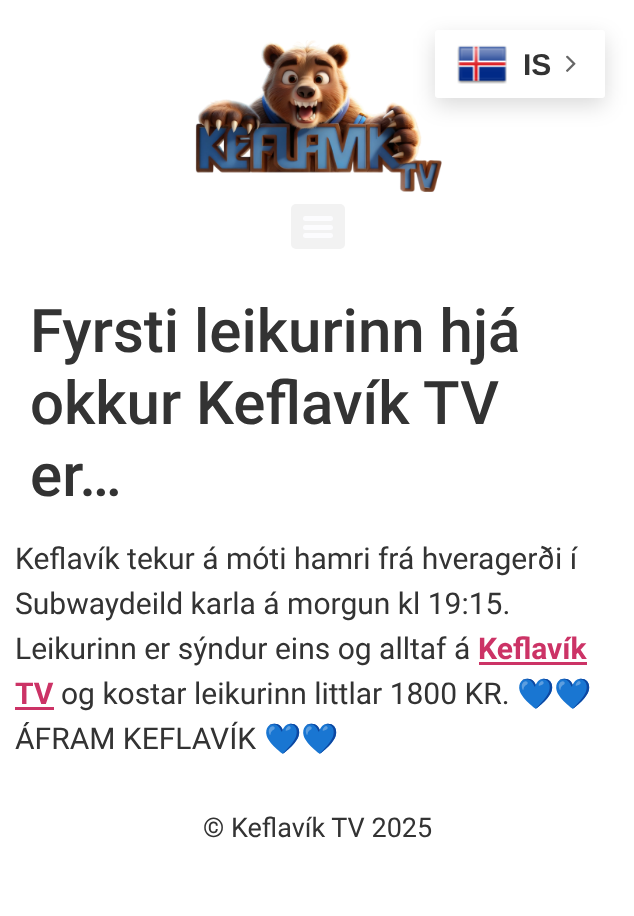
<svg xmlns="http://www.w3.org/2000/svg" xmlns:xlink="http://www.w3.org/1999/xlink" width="634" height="916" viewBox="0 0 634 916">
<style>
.cls-1{font:bold 30px Liberation Sans;fill:#333333}
.cls-2{font:500 60px Roboto;fill:#333333}
.cls-3{font:30px Roboto;fill:#333333}
.cls-4{font:bold 30px Roboto;fill:#cc3366}
.cls-5{font:30px Noto Color Emoji;fill:#333333}
.cls-6{font:27px Roboto;fill:#333333}
</style>
<rect width="100%" height="100%" fill="#ffffff"/>
<image xlink:href="image0.png" x="195" y="40" width="247" height="152"/>
<rect fill="#f2f2f2" x="291" y="204" width="54" height="45" rx="5"/>
<rect fill="#fcfcfe" x="303" y="225" width="30" height="5" rx="2.5"/>
<rect fill="#fcfcfe" x="303" y="216" width="30" height="5" rx="2.5"/>
<rect fill="#fcfcfe" x="303" y="233" width="30" height="5" rx="2.5"/>
<rect fill="#000000" fill-opacity="0.15" filter="blur(11px)" x="435" y="38" width="170" height="67" rx="3"/>
<rect fill="#ffffff" x="435" y="30" width="170" height="68" rx="3"/>
<image xlink:href="image1.png" x="457" y="45" width="50" height="39"/>
<image xlink:href="image2.png" x="566" y="55" width="10" height="17"/>
<rect fill="#cc3366" x="479" y="662" width="108" height="3"/>
<rect fill="#cc3366" x="15" y="707" width="39" height="3"/>
<text class="cls-1" x="523" y="75">IS</text>
<text class="cls-2"><tspan x="30" y="352">Fyrsti leikurinn hjá</tspan><tspan x="30" y="424">okkur Keflavík TV</tspan><tspan x="30" y="496">er…</tspan></text>
<text class="cls-3"><tspan x="15" y="569">Keflavík tekur á móti hamri frá hveragerði í</tspan><tspan x="15" y="614">Subwaydeild karla á morgun kl 19:15.</tspan><tspan x="15" y="659">Leikurinn er sýndur eins og alltaf á</tspan></text>
<text class="cls-4" x="478" y="659">Keflavík</text>
<text class="cls-4" x="15" y="704">TV</text>
<text class="cls-3" x="61" y="704">og kostar leikurinn littlar 1800 KR.</text>
<text class="cls-5" x="517" y="704">💙💙</text>
<text class="cls-3" x="15" y="749">ÁFRAM KEFLAVÍK</text>
<text class="cls-5" x="264" y="749">💙💙</text>
<text class="cls-6" x="203" y="837">© Keflavík TV 2025</text>
</svg>
